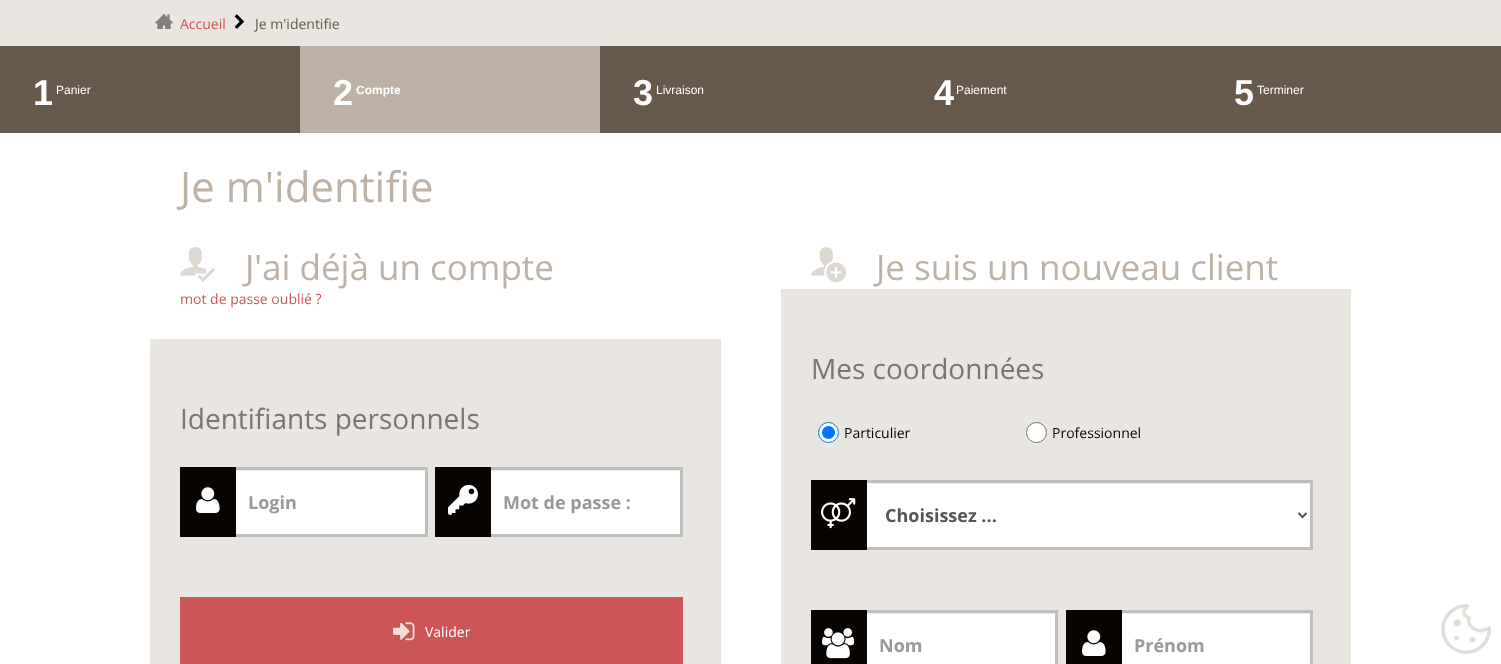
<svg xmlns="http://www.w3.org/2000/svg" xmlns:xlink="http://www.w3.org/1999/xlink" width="1501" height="664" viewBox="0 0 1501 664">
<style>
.cls-1{font:14px Open Sans;fill:#cc5556}
.cls-2{font:14px Open Sans;fill:#67594b}
.cls-3{font:bold 36px Liberation Sans;fill:#ffffff}
.cls-4{font:12px Liberation Sans;fill:#ffffff}
.cls-5{font:bold 12px Liberation Sans;fill:#ffffff}
.cls-6{font:42px Open Sans;fill:#beb2a6}
.cls-7{font:35px Open Sans;fill:#beb2a6}
.cls-8{font:28px Open Sans;fill:#777777}
.cls-9{font:bold 18px Open Sans;fill:#999999}
.cls-10{font:14px Open Sans;fill:#ffffff}
.cls-11{font:14px Open Sans;fill:#070401}
.cls-12{font:bold 18px Open Sans;fill:#555555}
</style>
<rect width="100%" height="100%" fill="#ffffff"/>
<rect fill="#e9e5e1" x="0" y="0" width="1501" height="46"/>
<image xlink:href="image0.png" x="155" y="14" width="18" height="15"/>
<image xlink:href="image1.png" x="234" y="14" width="10" height="15"/>
<rect fill="#67594b" x="0" y="46" width="1501" height="87"/>
<rect fill="#beb2a6" x="300" y="46" width="300" height="87"/>
<image xlink:href="image2.png" x="180" y="247" width="35" height="35"/>
<rect fill="#e9e5e1" x="150" y="339" width="571" height="325"/>
<rect fill="#ffffff" x="236" y="471" width="189" height="63"/>
<rect fill="#ebebeb" x="236" y="470" width="189" height="1"/>
<rect fill="none" stroke="#bfbfbf" stroke-width="3" x="181.5" y="468.5" width="245" height="67"/>
<rect fill="#070401" x="180" y="467" width="56" height="70"/>
<image xlink:href="image3.png" x="196" y="487" width="24" height="26"/>
<rect fill="#ffffff" x="491" y="471" width="189" height="63"/>
<rect fill="#ebebeb" x="491" y="470" width="189" height="1"/>
<rect fill="none" stroke="#bfbfbf" stroke-width="3" x="436.5" y="468.5" width="245" height="67"/>
<rect fill="#070401" x="435" y="467" width="56" height="70"/>
<image xlink:href="image4.png" x="448" y="484" width="30" height="31"/>
<rect fill="#cc5556" stroke="#cc5556" x="180.5" y="597.5" width="502" height="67"/>
<image xlink:href="image5.png" x="393" y="622" width="22" height="19"/>
<image xlink:href="image6.png" x="811" y="247" width="35" height="36"/>
<rect fill="#e9e5e1" x="781" y="289" width="570" height="375"/>
<circle fill="#ffffff" stroke="#0075ff" cx="828.5" cy="432.5" r="10"/>
<circle fill="#0075ff" cx="828.5" cy="432.5" r="6.5"/>
<circle fill="#ffffff" stroke="#767676" cx="1036.5" cy="432.5" r="10"/>
<rect fill="#ffffff" x="867" y="482" width="443" height="66"/>
<path fill="#bfbfbf" d="M811 480H1313L1310 483H871Z"/>
<rect fill="#bfbfbf" x="1310" y="480" width="3" height="70"/>
<path fill="#bfbfbf" d="M1313 550H811L871 547H1310Z"/>
<rect fill="#070401" x="811" y="480" width="56" height="70"/>
<image xlink:href="image7.png" x="821" y="498" width="35" height="31"/>
<rect fill="#ebebeb" x="871" y="483" width="439" height="1"/>
<path fill="none" stroke="#555555" stroke-width="2" d="M1298.5 513L1302.5 517L1306.5 513"/>
<rect fill="#ffffff" x="867" y="614" width="188" height="50"/>
<rect fill="#ebebeb" x="867" y="613" width="188" height="1"/>
<rect fill="none" stroke="#bfbfbf" stroke-width="3" x="812.5" y="611.5" width="244" height="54"/>
<rect fill="#070401" x="811" y="610" width="56" height="54"/>
<image xlink:href="image8.png" x="822" y="628" width="33" height="31"/>
<rect fill="#ffffff" x="1122" y="614" width="188" height="50"/>
<rect fill="#ebebeb" x="1122" y="613" width="188" height="1"/>
<rect fill="none" stroke="#bfbfbf" stroke-width="3" x="1067.5" y="611.5" width="244" height="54"/>
<rect fill="#070401" x="1066" y="610" width="56" height="54"/>
<image xlink:href="image3.png" x="1082" y="630" width="24" height="26"/>
<image xlink:href="image9.png" x="1441" y="604" width="50" height="50"/>
<text class="cls-1" x="180" y="29">Accueil</text>
<text class="cls-2" x="255" y="29">Je m'identifie</text>
<text class="cls-3" x="33" y="105">1</text>
<text class="cls-4" x="56" y="94">Panier</text>
<text class="cls-3" x="333" y="105">2</text>
<text class="cls-5" x="356" y="94">Compte</text>
<text class="cls-3" x="633" y="105">3</text>
<text class="cls-4" x="656" y="94">Livraison</text>
<text class="cls-3" x="934" y="105">4</text>
<text class="cls-4" x="956" y="94">Paiement</text>
<text class="cls-3" x="1234" y="105">5</text>
<text class="cls-4" x="1257" y="94">Terminer</text>
<text class="cls-6" x="180" y="202">Je m'identifie</text>
<text class="cls-7" x="245" y="280">J'ai déjà un compte</text>
<text class="cls-1" x="180" y="304">mot de passe oublié ?</text>
<text class="cls-8" x="180" y="429">Identifiants personnels</text>
<text class="cls-9" x="248" y="509">Login</text>
<text class="cls-9" x="503" y="509">Mot de passe :</text>
<text class="cls-10" x="425" y="637">Valider</text>
<text class="cls-7" x="876" y="280">Je suis un nouveau client</text>
<text class="cls-8" x="811" y="379">Mes coordonnées</text>
<text class="cls-11" x="844" y="438">Particulier</text>
<text class="cls-11" x="1052" y="438">Professionnel</text>
<text class="cls-12" x="885" y="522">Choisissez ...</text>
<text class="cls-9" x="879" y="652">Nom</text>
<text class="cls-9" x="1134" y="652">Prénom</text>
</svg>
